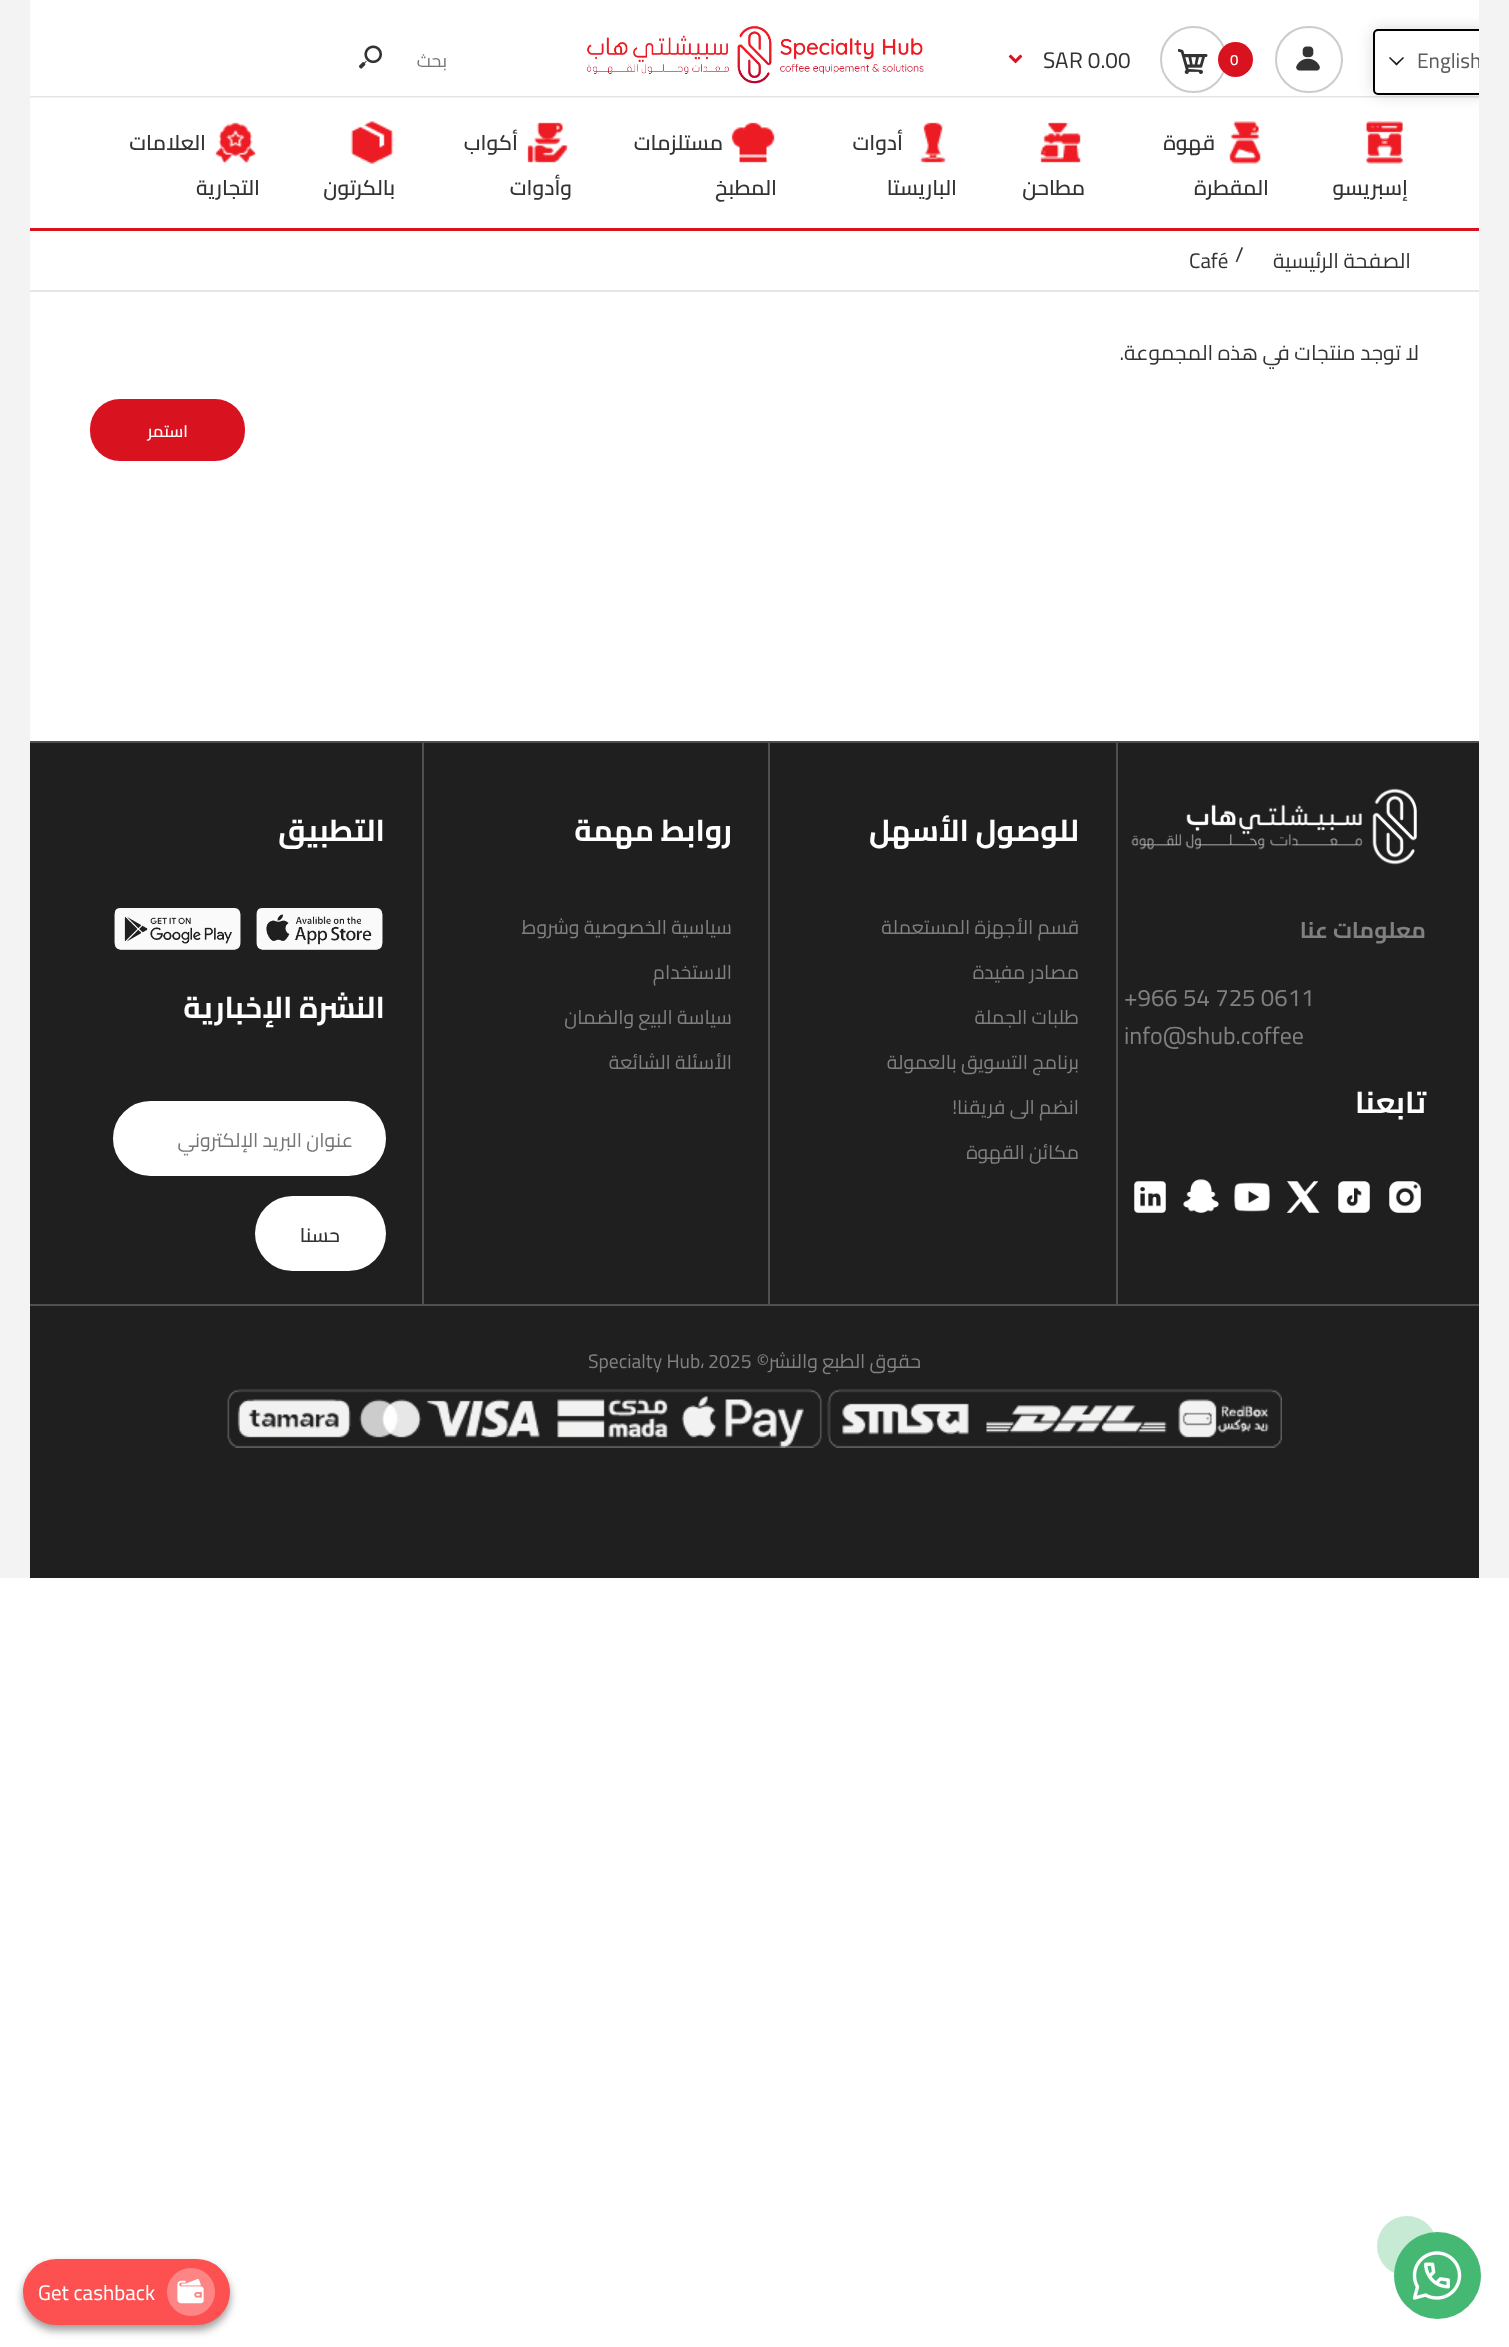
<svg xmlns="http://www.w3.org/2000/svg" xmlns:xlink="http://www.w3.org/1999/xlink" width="1509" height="2347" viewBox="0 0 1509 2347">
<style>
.cls-1{font:21px Cairo;fill:#5c5c5c}
.cls-2{font:600 15px Cairo;fill:#ffffff}
.cls-3{font:22.5px Cairo;fill:#333333}
.cls-4{font:22.5px 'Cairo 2';fill:#333333}
.cls-5{font:18px 'Cairo 2';direction:rtl;fill:#757575}
.cls-6{font:600 21px Cairo;direction:rtl;fill:#333333}
.cls-7{font:21px 'Cairo 2';direction:rtl;fill:#333333}
.cls-8{font:21px Cairo;fill:#333333}
.cls-9{font:21px Cairo;direction:rtl;fill:#333333}
.cls-10{font:600 16.5px Cairo;direction:rtl;fill:#ffffff}
.cls-11{font:bold 22.5px Cairo;direction:rtl;fill:#808080}
.cls-12{font:24px Cairo;fill:#808080}
.cls-13{font:bold 30px Cairo;direction:rtl;fill:#ffffff}
.cls-14{font:19.5px 'Cairo 2';direction:rtl;fill:#808080}
.cls-15{font:19.5px Cairo;direction:rtl;fill:#808080}
.cls-16{font:19.5px 'Cairo 2';direction:rtl;fill:#757575}
.cls-17{font:600 19.5px Cairo;direction:rtl;fill:#333333}
.cls-18{font:19.5px Cairo;fill:#808080}
.cls-19{font:19.5px 'Cairo 2';fill:#808080}
.cls-20{font:21px Cairo;fill:#ffffff}
</style>
<defs>
<clipPath id="clip1"><rect x="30" y="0" width="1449" height="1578"/></clipPath>
<clipPath id="clip2"><rect x="30" y="0" width="1449" height="1578"/></clipPath>
<clipPath id="clip3"><rect x="1418" y="42" width="61" height="39"/></clipPath>
</defs>
<rect width="100%" height="100%" fill="#ffffff"/>
<rect fill="#f3f3f3" x="0" y="0" width="1509" height="1578"/>
<rect fill="#ffffff" x="30" y="0" width="1449" height="741"/>
<image xlink:href="image5.png" x="30" y="96" width="1449" height="2"/>
<g clip-path="url(#clip1)">
<rect fill="#000000" fill-opacity="0.15" filter="blur(7.5px)" x="1373" y="29" width="124" height="66" rx="5"/>
</g>
<path fill="#ffffff" d="M1378 29H1479V95H1378C1375 95 1373 93 1373 90V34C1373 31 1375 29 1378 29Z"/>
<g clip-path="url(#clip2)">
<rect fill="none" stroke="#000000" stroke-width="2" x="1374" y="30" width="122" height="64" rx="4"/>
</g>
<path fill="#1a1a1a" d="M1403 57L1404 58L1396.5 65.5L1395.5 64Z"/>
<path fill="#1a1a1a" d="M1390 57L1397.5 64L1396.5 65.5L1389 58Z"/>
<rect fill="none" stroke="#cccccc" stroke-width="2" x="1276" y="27" width="66" height="65" rx="32.5"/>
<image xlink:href="image0.png" x="1296" y="46" width="24" height="25"/>
<circle fill="none" stroke="#cccccc" stroke-width="2" cx="1193.5" cy="59.5" r="32.5"/>
<circle fill="#d9121f" cx="1235.5" cy="59.5" r="17.5"/>
<image xlink:href="image1.png" x="1178" y="49" width="30" height="25"/>
<image xlink:href="image2.png" x="1008" y="54" width="15" height="10"/>
<image xlink:href="image3.png" x="586" y="26" width="338" height="58"/>
<image xlink:href="image4.png" x="359" y="45" width="23" height="24"/>
<rect fill="#d9121f" x="30" y="228" width="1449" height="3"/>
<image xlink:href="image6.png" x="1366" y="121" width="37" height="43"/>
<image xlink:href="image7.png" x="1228" y="121" width="34" height="43"/>
<image xlink:href="image8.png" x="1040" y="122" width="41" height="41"/>
<image xlink:href="image9.png" x="920" y="122" width="26" height="41"/>
<image xlink:href="image10.png" x="731" y="122" width="44" height="41"/>
<image xlink:href="image11.png" x="527" y="122" width="41" height="41"/>
<image xlink:href="image12.png" x="350" y="121" width="44" height="43"/>
<image xlink:href="image13.png" x="215" y="122" width="41" height="41"/>
<rect fill="#e5e5e5" x="30" y="290" width="1449" height="2"/>
<rect fill="#d9121f" x="90" y="399" width="155" height="62" rx="30"/>
<rect fill="#504f4f" x="30" y="741" width="1449" height="2"/>
<rect fill="#1f1f1f" x="30" y="743" width="1449" height="835"/>
<image xlink:href="image14.png" x="1131" y="788" width="286" height="77"/>
<image xlink:href="image15.png" x="1389" y="1181" width="32" height="32"/>
<image xlink:href="image16.png" x="1338" y="1181" width="32" height="32"/>
<image xlink:href="image17.png" x="1286" y="1181" width="34" height="32"/>
<image xlink:href="image18.png" x="1234" y="1182" width="36" height="30"/>
<image xlink:href="image19.png" x="1183" y="1179" width="36" height="34"/>
<image xlink:href="image20.png" x="1134" y="1181" width="32" height="32"/>
<rect fill="#504f4f" x="1116" y="743" width="2" height="561"/>
<rect fill="#504f4f" x="768" y="743" width="2" height="561"/>
<rect fill="#504f4f" x="422" y="743" width="2" height="561"/>
<image xlink:href="image21.png" x="114" y="908" width="269" height="42"/>
<rect fill="#ffffff" stroke="#ffffff" stroke-width="2" x="114" y="1102" width="271" height="73" rx="36.5"/>
<rect fill="#ffffff" x="255" y="1196" width="131" height="75" rx="37.5"/>
<rect fill="#504f4f" x="30" y="1304" width="1449" height="2"/>
<image xlink:href="image22.png" x="227" y="1389" width="1055" height="59"/>
<circle fill="#45b974" cx="1437.5" cy="2275.5" r="43.5"/>
<circle fill="#45b974" fill-opacity="0.3" cx="1407" cy="2246" r="30"/>
<image xlink:href="image23.png" x="1412" y="2251" width="50" height="49"/>
<rect fill="#000000" fill-opacity="0.4" filter="blur(4px)" x="23" y="2264" width="207" height="66" rx="33"/>
<rect fill="#fd5151" x="23" y="2259" width="207" height="66" rx="33"/>
<circle fill="#fe8585" cx="191" cy="2292" r="24"/>
<image xlink:href="image24.png" x="177" y="2279" width="27" height="25"/>
<g clip-path="url(#clip3)">
<text class="cls-1" x="1417" y="68">English</text>
</g>
<text class="cls-2" x="1230" y="65">0</text>
<text class="cls-3" x="1069" y="68">R 0.00</text>
<text class="cls-4" x="1055" y="68">A</text>
<text class="cls-3" x="1043" y="68">S</text>
<text class="cls-5" x="447" y="67">بحث</text>
<text class="cls-6" x="1408" y="195">إسبريسو</text>
<text class="cls-6" x="1215" y="150">قهوة</text>
<text class="cls-6" x="1269" y="195">المقطرة</text>
<text class="cls-6" x="1085" y="195">مطاحن</text>
<text class="cls-6" x="903" y="150">أدوات</text>
<text class="cls-6" x="957" y="195">الباريستا</text>
<text class="cls-6" x="723" y="150">مستلزمات</text>
<text class="cls-6" x="777" y="195">المطبخ</text>
<text class="cls-6" x="518" y="150">أكواب</text>
<text class="cls-6" x="572" y="195">وأدوات</text>
<text class="cls-6" x="395" y="195">بالكرتون</text>
<text class="cls-6" x="206" y="150">العلامات</text>
<text class="cls-6" x="260" y="195">التجارية</text>
<text class="cls-7" x="1411" y="268">الصفحة الرئيسية</text>
<text class="cls-8" x="1235" y="262">/</text>
<text class="cls-8" x="1189" y="268">Café</text>
<text class="cls-7" x="1419" y="360">لا توجد منتجات في هذه المجموعة</text>
<text class="cls-9" x="1124" y="360">.</text>
<text class="cls-10" x="188" y="437">استمر</text>
<text class="cls-11" x="1426" y="938">معلومات عنا</text>
<text class="cls-12"><tspan x="1124" y="1006">+966 54 725 0611</tspan><tspan x="1124" y="1044">info@shub.coffee</tspan></text>
<text class="cls-13" x="1426" y="1113">تابعنا</text>
<text class="cls-13" x="1079" y="841">للوصول الأسهل</text>
<text class="cls-14" x="1079" y="934">قسم الأجهزة المستعملة</text>
<text class="cls-14" x="1079" y="979">مصادر مفيدة</text>
<text class="cls-14" x="1079" y="1024">طلبات الجملة</text>
<text class="cls-14" x="1079" y="1069">برنامج التسويق بالعمولة</text>
<text class="cls-14" x="1079" y="1114">انضم الى فريقنا</text>
<text class="cls-15" x="957" y="1114">!</text>
<text class="cls-14" x="1079" y="1159">مكائن القهوة</text>
<text class="cls-13" x="732" y="841">روابط مهمة</text>
<text class="cls-14" x="732" y="934">سياسية الخصوصية وشروط</text>
<text class="cls-14" x="732" y="979">الاستخدام</text>
<text class="cls-14" x="732" y="1024">سياسة البيع والضمان</text>
<text class="cls-14" x="732" y="1069">الأسئلة الشائعة</text>
<text class="cls-13" x="385" y="841">التطبيق</text>
<text class="cls-13" x="385" y="1018">النشرة الإخبارية</text>
<text class="cls-16" x="353" y="1147">عنوان البريد الإلكتروني</text>
<text class="cls-17" x="340" y="1242">حسنا</text>
<text class="cls-14" x="921" y="1368">حقوق الطبع والنشر</text>
<text class="cls-15" x="769" y="1368">©</text>
<text class="cls-18" x="708" y="1368">2025</text>
<text class="cls-18" x="588" y="1368">Specialty Hub</text>
<text class="cls-19" x="700" y="1368">،</text>
<text class="cls-20" x="38" y="2300">Get cashback</text>
</svg>
